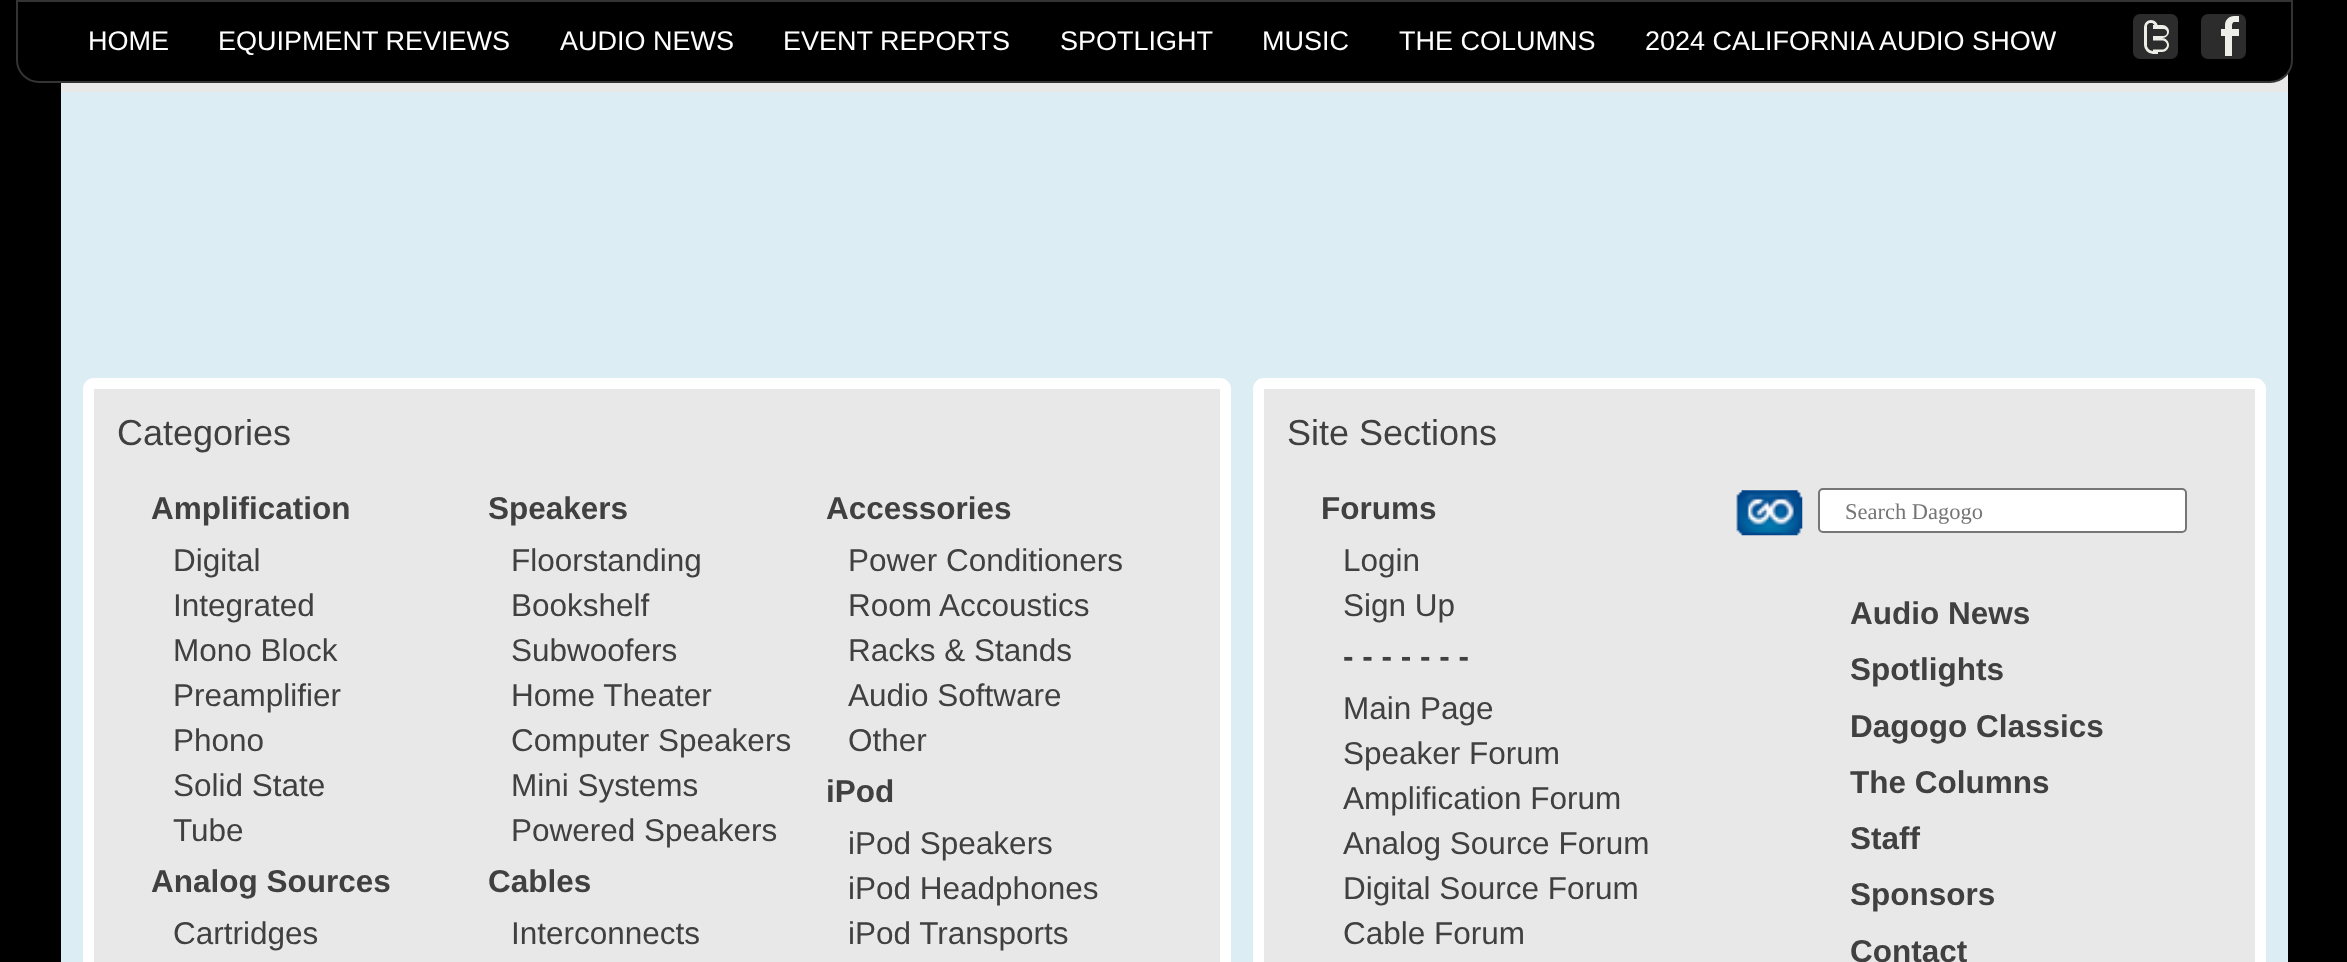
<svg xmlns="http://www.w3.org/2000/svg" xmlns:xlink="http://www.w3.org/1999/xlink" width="2347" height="962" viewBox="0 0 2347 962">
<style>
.cls-1{font:27px Liberation Sans;fill:#ffffff}
.cls-2{font:36px Liberation Sans;fill:#404040}
.cls-3{font:bold 31.5px Liberation Sans;fill:#404040}
.cls-4{font:31.5px Liberation Sans;fill:#404040}
.cls-5{font:22.5px Liberation Serif;fill:#757575}
</style>
<rect width="100%" height="100%" fill="#000000"/>
<rect fill="#e8e8e8" x="61" y="74" width="2227" height="18"/>
<path fill="#000000" stroke="#333333" stroke-width="2" d="M17 1H2292V60C2292 72 2282 82 2270 82H39C27 82 17 72 17 60Z"/>
<rect fill="#2c2c2c" x="2133" y="14" width="45" height="45" rx="7"/>
<path fill="none" stroke="#edeee8" stroke-width="3" d="M2151 21.5C2154 21.5 2156.5 24 2156.5 27V52.5H2153C2149 52.5 2145.5 49 2145.5 45V27C2145.5 24 2148 21.5 2151 21.5Z"/>
<path fill="#2c2c2c" d="M2150.5 23C2152.5 23 2154 24.5 2154 26.5V50H2153C2149.5 50 2147 47.5 2147 44V26.5C2147 24.5 2148.5 23 2150.5 23Z"/>
<path fill="#edeee8" d="M2153 25H2162.5C2166 25 2169 28 2169 31.5C2169 35 2166 38 2162.5 38H2153Z"/>
<rect fill="#2c2c2c" x="2153" y="29" width="9" height="7"/>
<path fill="#2c2c2c" d="M2158 29H2163.5C2165.5 29 2167 30.5 2167 32.5C2167 34.5 2165.5 36 2163.5 36H2158Z"/>
<path fill="#2c2c2c" d="M2153 38H2162C2166 38 2169 41 2169 45C2169 49 2166 52 2162 52H2153Z"/>
<path fill="#edeee8" fill-rule="evenodd" d="M2153 38H2162C2166 38 2169 41.5 2169 45C2169 48.5 2166 52 2162 52H2153ZM2153 40.5H2162C2164.5 40.5 2167 42.5 2167 45C2167 47.5 2164.5 49.5 2162 49.5H2153Z"/>
<rect fill="#2c2c2c" x="2201" y="14" width="45" height="45" rx="7"/>
<rect fill="#edeee8" x="2221" y="29" width="18" height="7"/>
<path fill="#edeee8" fill-rule="evenodd" d="M2234 16H2239V56H2225V25C2225 20 2229 16 2234 16ZM2234 22H2239V56H2232V25C2232 24 2233 22 2234 22Z"/>
<rect fill="#dcedf3" x="61" y="92" width="2227" height="870"/>
<rect fill="#e8e8e8" stroke="#ffffff" stroke-width="11" x="88.5" y="383.5" width="1137" height="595" rx="5.5"/>
<rect fill="#e8e8e8" stroke="#ffffff" stroke-width="11" x="1258.5" y="383.5" width="1002" height="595" rx="5.5"/>
<image xlink:href="image0.png" x="1736" y="490" width="67" height="46"/>
<rect fill="#ffffff" stroke="#767676" stroke-width="2" x="1819" y="489" width="367" height="43" rx="4"/>
<text class="cls-1" x="88" y="50">HOME</text>
<text class="cls-1" x="218" y="50">EQUIPMENT REVIEWS</text>
<text class="cls-1" x="560" y="50">AUDIO NEWS</text>
<text class="cls-1" x="783" y="50">EVENT REPORTS</text>
<text class="cls-1" x="1060" y="50">SPOTLIGHT</text>
<text class="cls-1" x="1262" y="50">MUSIC</text>
<text class="cls-1" x="1399" y="50">THE COLUMNS</text>
<text class="cls-1" x="1645" y="50">2024 CALIFORNIA AUDIO SHOW</text>
<text class="cls-2" x="117" y="445">Categories</text>
<text class="cls-3" x="151" y="519">Amplification</text>
<text class="cls-4"><tspan x="173" y="571">Digital</tspan><tspan x="173" y="616">Integrated</tspan><tspan x="173" y="661">Mono Block</tspan><tspan x="173" y="706">Preamplifier</tspan><tspan x="173" y="751">Phono</tspan><tspan x="173" y="796">Solid State</tspan><tspan x="173" y="841">Tube</tspan></text>
<text class="cls-3" x="151" y="892">Analog Sources</text>
<text class="cls-4" x="173" y="944">Cartridges</text>
<text class="cls-3" x="488" y="519">Speakers</text>
<text class="cls-4"><tspan x="511" y="571">Floorstanding</tspan><tspan x="511" y="616">Bookshelf</tspan><tspan x="511" y="661">Subwoofers</tspan><tspan x="511" y="706">Home Theater</tspan><tspan x="511" y="751">Computer Speakers</tspan><tspan x="511" y="796">Mini Systems</tspan><tspan x="511" y="841">Powered Speakers</tspan></text>
<text class="cls-3" x="488" y="892">Cables</text>
<text class="cls-4" x="511" y="944">Interconnects</text>
<text class="cls-3" x="826" y="519">Accessories</text>
<text class="cls-4"><tspan x="848" y="571">Power Conditioners</tspan><tspan x="848" y="616">Room Accoustics</tspan><tspan x="848" y="661">Racks &amp; Stands</tspan><tspan x="848" y="706">Audio Software</tspan><tspan x="848" y="751">Other</tspan></text>
<text class="cls-3" x="826" y="802">iPod</text>
<text class="cls-4"><tspan x="848" y="854">iPod Speakers</tspan><tspan x="848" y="899">iPod Headphones</tspan><tspan x="848" y="944">iPod Transports</tspan></text>
<text class="cls-2" x="1287" y="445">Site Sections</text>
<text class="cls-3" x="1321" y="519">Forums</text>
<text class="cls-4"><tspan x="1343" y="571">Login</tspan><tspan x="1343" y="616">Sign Up</tspan></text>
<text class="cls-3" x="1343" y="667">- - - - - - -</text>
<text class="cls-4"><tspan x="1343" y="719">Main Page</tspan><tspan x="1343" y="764">Speaker Forum</tspan><tspan x="1343" y="809">Amplification Forum</tspan><tspan x="1343" y="854">Analog Source Forum</tspan><tspan x="1343" y="899">Digital Source Forum</tspan><tspan x="1343" y="944">Cable Forum</tspan></text>
<text class="cls-5" x="1845" y="519">Search Dagogo</text>
<text class="cls-3"><tspan x="1850" y="624">Audio News</tspan><tspan x="1850" y="680">Spotlights</tspan><tspan x="1850" y="737">Dagogo Classics</tspan><tspan x="1850" y="793">The Columns</tspan><tspan x="1850" y="849">Staff</tspan><tspan x="1850" y="905">Sponsors</tspan><tspan x="1850" y="962">Contact</tspan></text>
</svg>
